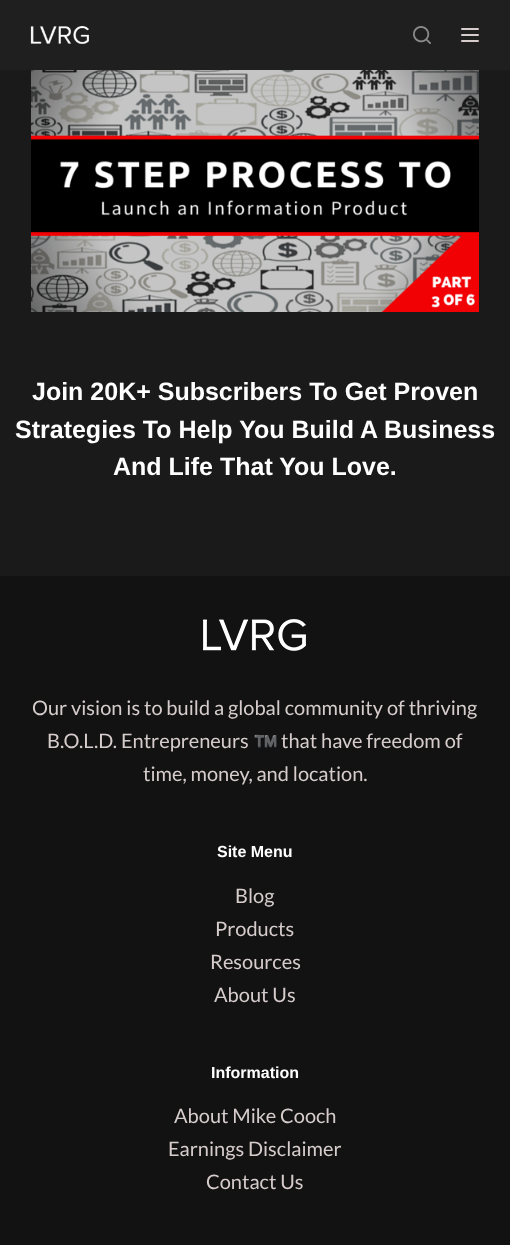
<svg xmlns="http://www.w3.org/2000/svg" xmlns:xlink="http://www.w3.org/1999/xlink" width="510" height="1245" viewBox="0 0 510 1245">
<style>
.cls-1{font:bold 25px Liberation Sans;fill:#ffffff}
.cls-2{font:20px Lato;fill:#d6cccc}
.cls-3{font:20px Noto Color Emoji;fill:#d6cccc}
.cls-4{font:bold 16px Liberation Sans;fill:#ffffff}
</style>
<rect width="100%" height="100%" fill="#1a1a1a"/>
<rect fill="#1f1f1f" x="0" y="0" width="510" height="70"/>
<image xlink:href="image0.png" x="30" y="26" width="59" height="18"/>
<image xlink:href="image1.png" x="413" y="26" width="18" height="18"/>
<rect fill="#d6cccc" x="461" y="28" width="18" height="2" rx="1"/>
<rect fill="#d6cccc" x="461" y="34" width="18" height="2" rx="1"/>
<rect fill="#d6cccc" x="461" y="40" width="18" height="2" rx="1"/>
<image xlink:href="image2.png" x="31" y="70" width="448" height="242"/>
<rect fill="#121212" x="0" y="576" width="510" height="669"/>
<image xlink:href="image3.png" x="203" y="619" width="103" height="32"/>
<text class="cls-1" x="32" y="400">Join 20K+ Subscribers To Get Proven</text>
<text class="cls-1" x="15" y="438">Strategies To Help You Build A Business</text>
<text class="cls-1" x="113" y="475">And Life That You Love.</text>
<text class="cls-2" x="32" y="715">Our vision is to build a global community of thriving</text>
<text class="cls-2" x="47" y="748">B.O.L.D. Entrepreneurs</text>
<text class="cls-3" x="253" y="748">™️</text>
<text class="cls-2" x="281" y="748">that have freedom of</text>
<text class="cls-2" x="143" y="781">time, money, and location.</text>
<text class="cls-4" x="217" y="857">Site Menu</text>
<text class="cls-2" x="235" y="903">Blog</text>
<text class="cls-2" x="215" y="936">Products</text>
<text class="cls-2" x="210" y="969">Resources</text>
<text class="cls-2" x="214" y="1002">About Us</text>
<text class="cls-4" x="211" y="1078">Information</text>
<text class="cls-2" x="174" y="1123">About Mike Cooch</text>
<text class="cls-2" x="168" y="1156">Earnings Disclaimer</text>
<text class="cls-2" x="206" y="1189">Contact Us</text>
</svg>
